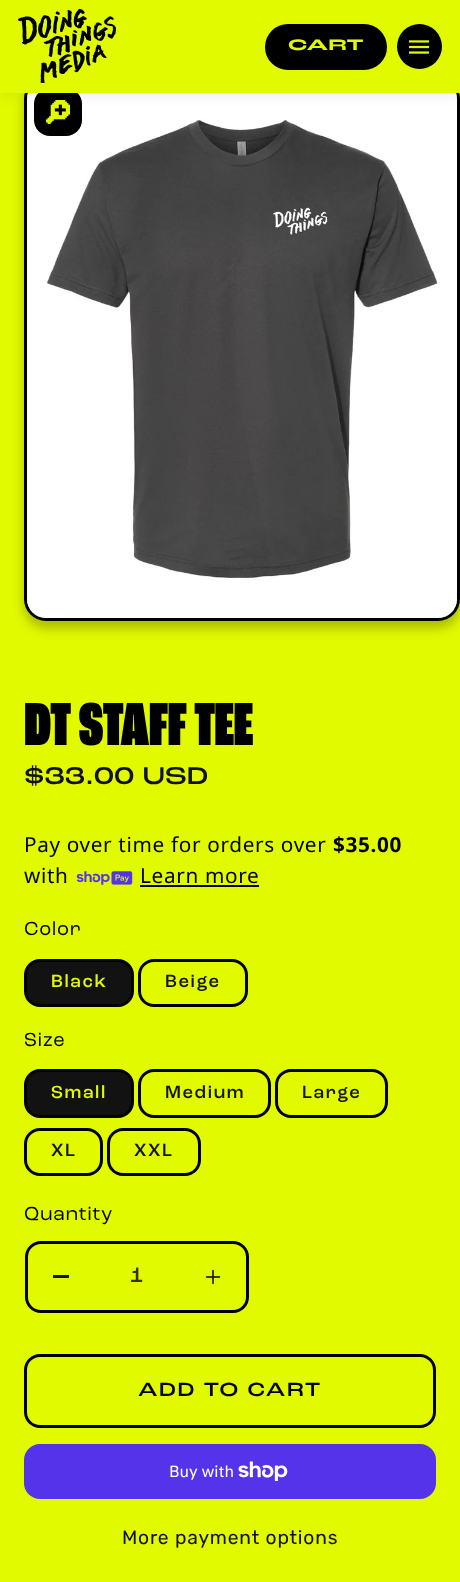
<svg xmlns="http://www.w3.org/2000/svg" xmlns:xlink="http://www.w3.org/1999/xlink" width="460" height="1582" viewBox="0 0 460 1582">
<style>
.cls-1{font:bold 16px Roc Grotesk;fill:#e1fa00}
.cls-2{font:900 64px Roc Grotesk;letter-spacing:-0.6px;fill:#000000}
.cls-3{font:500 25.5px Roc Grotesk;fill:#121212}
.cls-4{font:20.75px Noto Sans;letter-spacing:0.65px;fill:#000000}
.cls-5{font:bold 20.75px Noto Sans;letter-spacing:0.65px;fill:#000000}
.cls-6{font:20px Roc Grotesk;letter-spacing:0.65px;fill:#000000}
.cls-7{font:500 18.5px 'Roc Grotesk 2';letter-spacing:1.6px;fill:#e1fa00}
.cls-8{font:500 18.5px 'Roc Grotesk 2';letter-spacing:1.6px;fill:#121212}
.cls-9{font:500 22px 'Roc Grotesk 2';fill:#31350f}
.cls-10{font:500 20px Roc Grotesk;letter-spacing:1.6px;fill:#000000}
.cls-11{font:16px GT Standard;fill:#ffffff}
.cls-12{font:19.25px Rubik;letter-spacing:0.8px;fill:#121212}
</style>
<rect width="100%" height="100%" fill="#e1fa00"/>
<rect fill="#000000" fill-opacity="0.25" filter="blur(5.5px)" x="24" y="84" width="436" height="544" rx="22"/>
<rect fill="none" stroke="#000000" stroke-width="3" x="25.5" y="78.5" width="433" height="541" rx="20.5"/>
<image xlink:href="image3.png" x="27" y="93" width="430" height="525"/>
<rect fill="#000000" x="34" y="88" width="48" height="48" rx="16"/>
<image xlink:href="image2.png" x="46" y="100" width="24" height="24"/>
<rect fill="#000000" fill-opacity="0.06" filter="blur(6px)" x="0" y="4" width="460" height="93"/>
<rect fill="#e1fa00" x="0" y="0" width="460" height="93"/>
<image xlink:href="image0.png" x="18" y="9" width="98" height="74"/>
<rect fill="#000000" stroke="#000000" stroke-width="3" x="266.5" y="25.5" width="119" height="43" rx="21.5"/>
<circle fill="#000000" cx="419.5" cy="46.5" r="22.5"/>
<image xlink:href="image1.png" x="409" y="40" width="20" height="14"/>
<image xlink:href="image4.png" x="76" y="871" width="57" height="14"/>
<rect fill="#000000" x="140" y="885" width="119" height="2"/>
<rect fill="#121212" stroke="#000000" stroke-width="3" x="25.5" y="960.5" width="107" height="45" rx="14.5"/>
<rect fill="none" stroke="#000000" stroke-width="3" x="139.5" y="960.5" width="107" height="45" rx="14.5"/>
<rect fill="#121212" stroke="#000000" stroke-width="3" x="25.5" y="1070.5" width="107" height="46" rx="14.5"/>
<rect fill="none" stroke="#000000" stroke-width="3" x="139.5" y="1070.5" width="130" height="46" rx="14.5"/>
<rect fill="none" stroke="#000000" stroke-width="3" x="276.5" y="1070.5" width="110" height="46" rx="14.5"/>
<rect fill="none" stroke="#000000" stroke-width="3" x="25.5" y="1129.5" width="76" height="45" rx="14.5"/>
<rect fill="none" stroke="#000000" stroke-width="3" x="108.5" y="1129.5" width="91" height="45" rx="14.5"/>
<rect fill="#121212" x="53" y="1275" width="16" height="3"/>
<image xlink:href="image5.png" x="205" y="1269" width="16" height="16"/>
<rect fill="none" stroke="#000000" stroke-width="3" x="26.5" y="1242.5" width="221" height="69" rx="14.5"/>
<rect fill="none" stroke="#000000" stroke-width="3" x="25.5" y="1355.5" width="409" height="71" rx="14.5"/>
<rect fill="#5433eb" x="24" y="1444" width="412" height="55" rx="16"/>
<image xlink:href="image6.png" x="238" y="1461" width="50" height="20"/>
<text class="cls-1" x="288" y="50">CART</text>
<text class="cls-2" x="24" y="745">DT STAFF TEE</text>
<text class="cls-3" x="24" y="784">$33.00 USD</text>
<text class="cls-4" x="24" y="852">Pay over time for orders over</text>
<text class="cls-5" x="333" y="852">$35.00</text>
<text class="cls-4" x="24" y="883">with</text>
<text class="cls-4" x="140" y="883">Learn more</text>
<text class="cls-6" x="24" y="935">Color</text>
<text class="cls-7" x="51" y="987">Black</text>
<text class="cls-8" x="165" y="987">Beige</text>
<text class="cls-6" x="24" y="1046">Size</text>
<text class="cls-7" x="51" y="1098">Small</text>
<text class="cls-8" x="165" y="1098">Medium</text>
<text class="cls-8" x="302" y="1098">Large</text>
<text class="cls-8" x="51" y="1156">XL</text>
<text class="cls-8" x="134" y="1156">XXL</text>
<text class="cls-6" x="24" y="1220">Quantity</text>
<text class="cls-9" x="130" y="1282">1</text>
<text class="cls-10" x="138" y="1396">ADD TO CART</text>
<text class="cls-11" x="169" y="1477">Buy with</text>
<text class="cls-12" x="122" y="1544">More payment options</text>
</svg>
